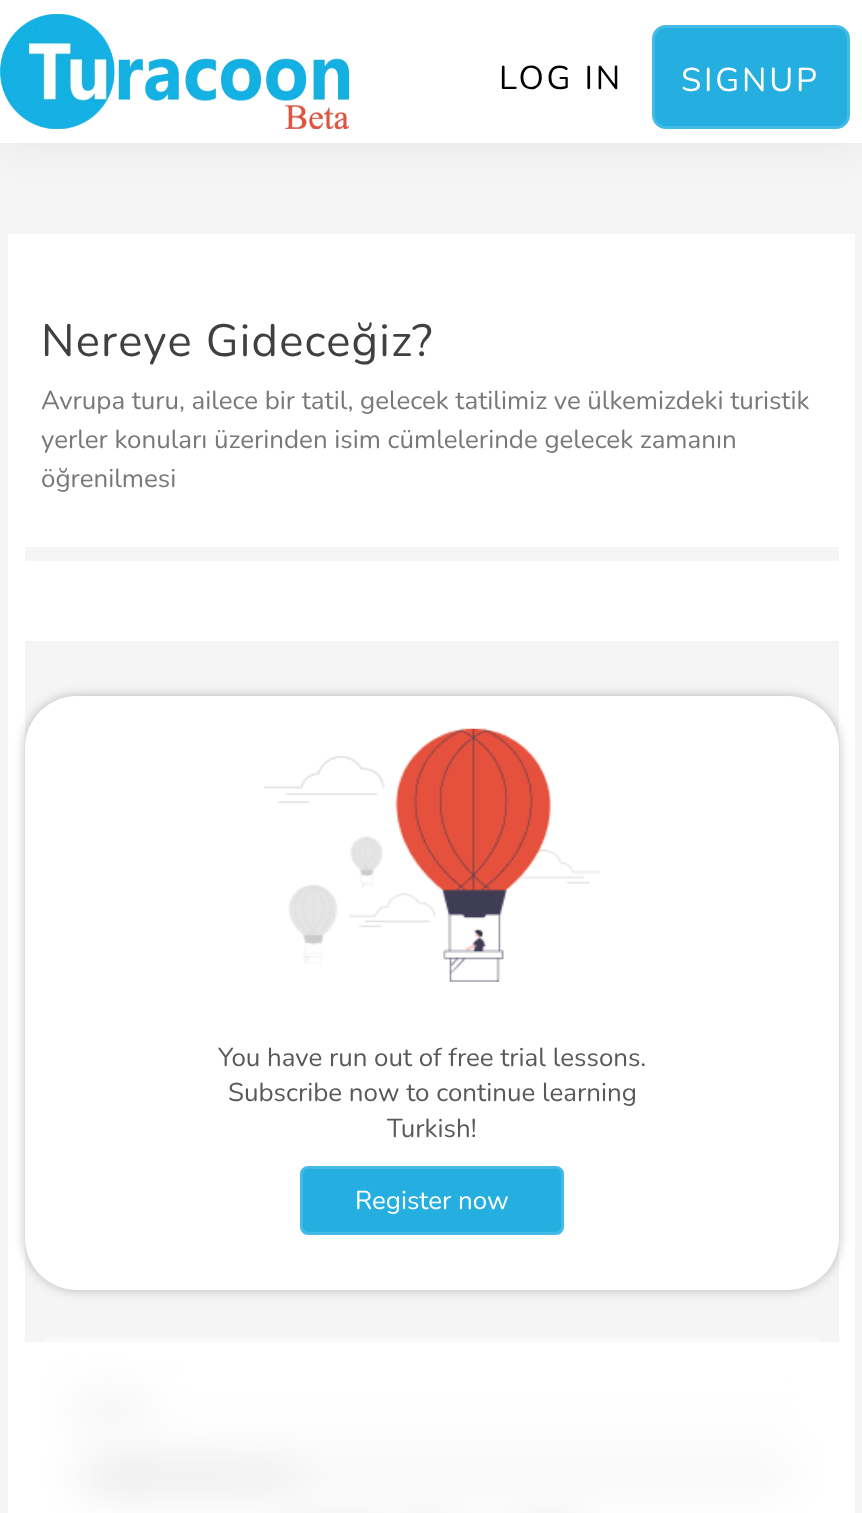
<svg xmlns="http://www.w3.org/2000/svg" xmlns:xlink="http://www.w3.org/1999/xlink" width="862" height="1513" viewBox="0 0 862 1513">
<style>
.cls-1{font:33px Nunito;letter-spacing:2.75px;fill:#000000}
.cls-2{font:33px Nunito;letter-spacing:2.75px;fill:#ffffff}
.cls-3{font:45.25px Nunito;letter-spacing:1.25px;fill:#404040}
.cls-4{font:25.9px Nunito;fill:#787878}
.cls-5{font:25.9px Nunito;fill:#595959}
.cls-6{font:25.9px Nunito;fill:#ffffff}
</style>
<rect width="100%" height="100%" fill="#f5f5f5"/>
<rect fill="#000000" fill-opacity="0.05" filter="blur(20.5px)" x="0" y="6" width="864" height="143"/>
<rect fill="#ffffff" x="0" y="0" width="862" height="143"/>
<image xlink:href="image0.png" x="0" y="14" width="349" height="115"/>
<rect fill="#24afe0" stroke="#44bbe6" stroke-width="3" x="653.5" y="26.5" width="195" height="101" rx="12.5"/>
<rect fill="#ffffff" x="8" y="234" width="847" height="1279"/>
<rect fill="#f5f5f5" x="25" y="547" width="814" height="14"/>
<rect fill="#f5f5f5" x="25" y="641" width="814" height="701"/>
<rect fill="#000000" fill-opacity="0.25" filter="blur(5.5px)" x="25" y="696" width="814" height="594" rx="52"/>
<rect fill="#ffffff" x="25" y="696" width="814" height="594" rx="52"/>
<image xlink:href="image1.png" x="264" y="728" width="336" height="254"/>
<rect fill="#24afe0" stroke="#44bbe6" stroke-width="3" x="301.5" y="1167.5" width="261" height="66" rx="6.5"/>
<image xlink:href="image2.png" x="44" y="1337" width="776" height="176"/>
<text class="cls-1" x="499" y="89">LOG IN</text>
<text class="cls-2" x="681" y="91">SIGNUP</text>
<text class="cls-3" x="41" y="356">Nereye Gideceğiz?</text>
<text class="cls-4"><tspan x="41" y="409" word-spacing="-0.1">Avrupa turu, ailece bir tatil, gelecek tatilimiz ve ülkemizdeki turistik</tspan><tspan x="41" y="448">yerler konuları üzerinden isim cümlelerinde gelecek zamanın</tspan><tspan x="41" y="487">öğrenilmesi</tspan></text>
<text class="cls-5" x="218" y="1066">You have run out of free trial lessons.</text>
<text class="cls-5" x="228" y="1101">Subscribe now to continue learning</text>
<text class="cls-5" x="387" y="1137">Turkish!</text>
<text class="cls-6" x="355" y="1209">Register now</text>
</svg>
